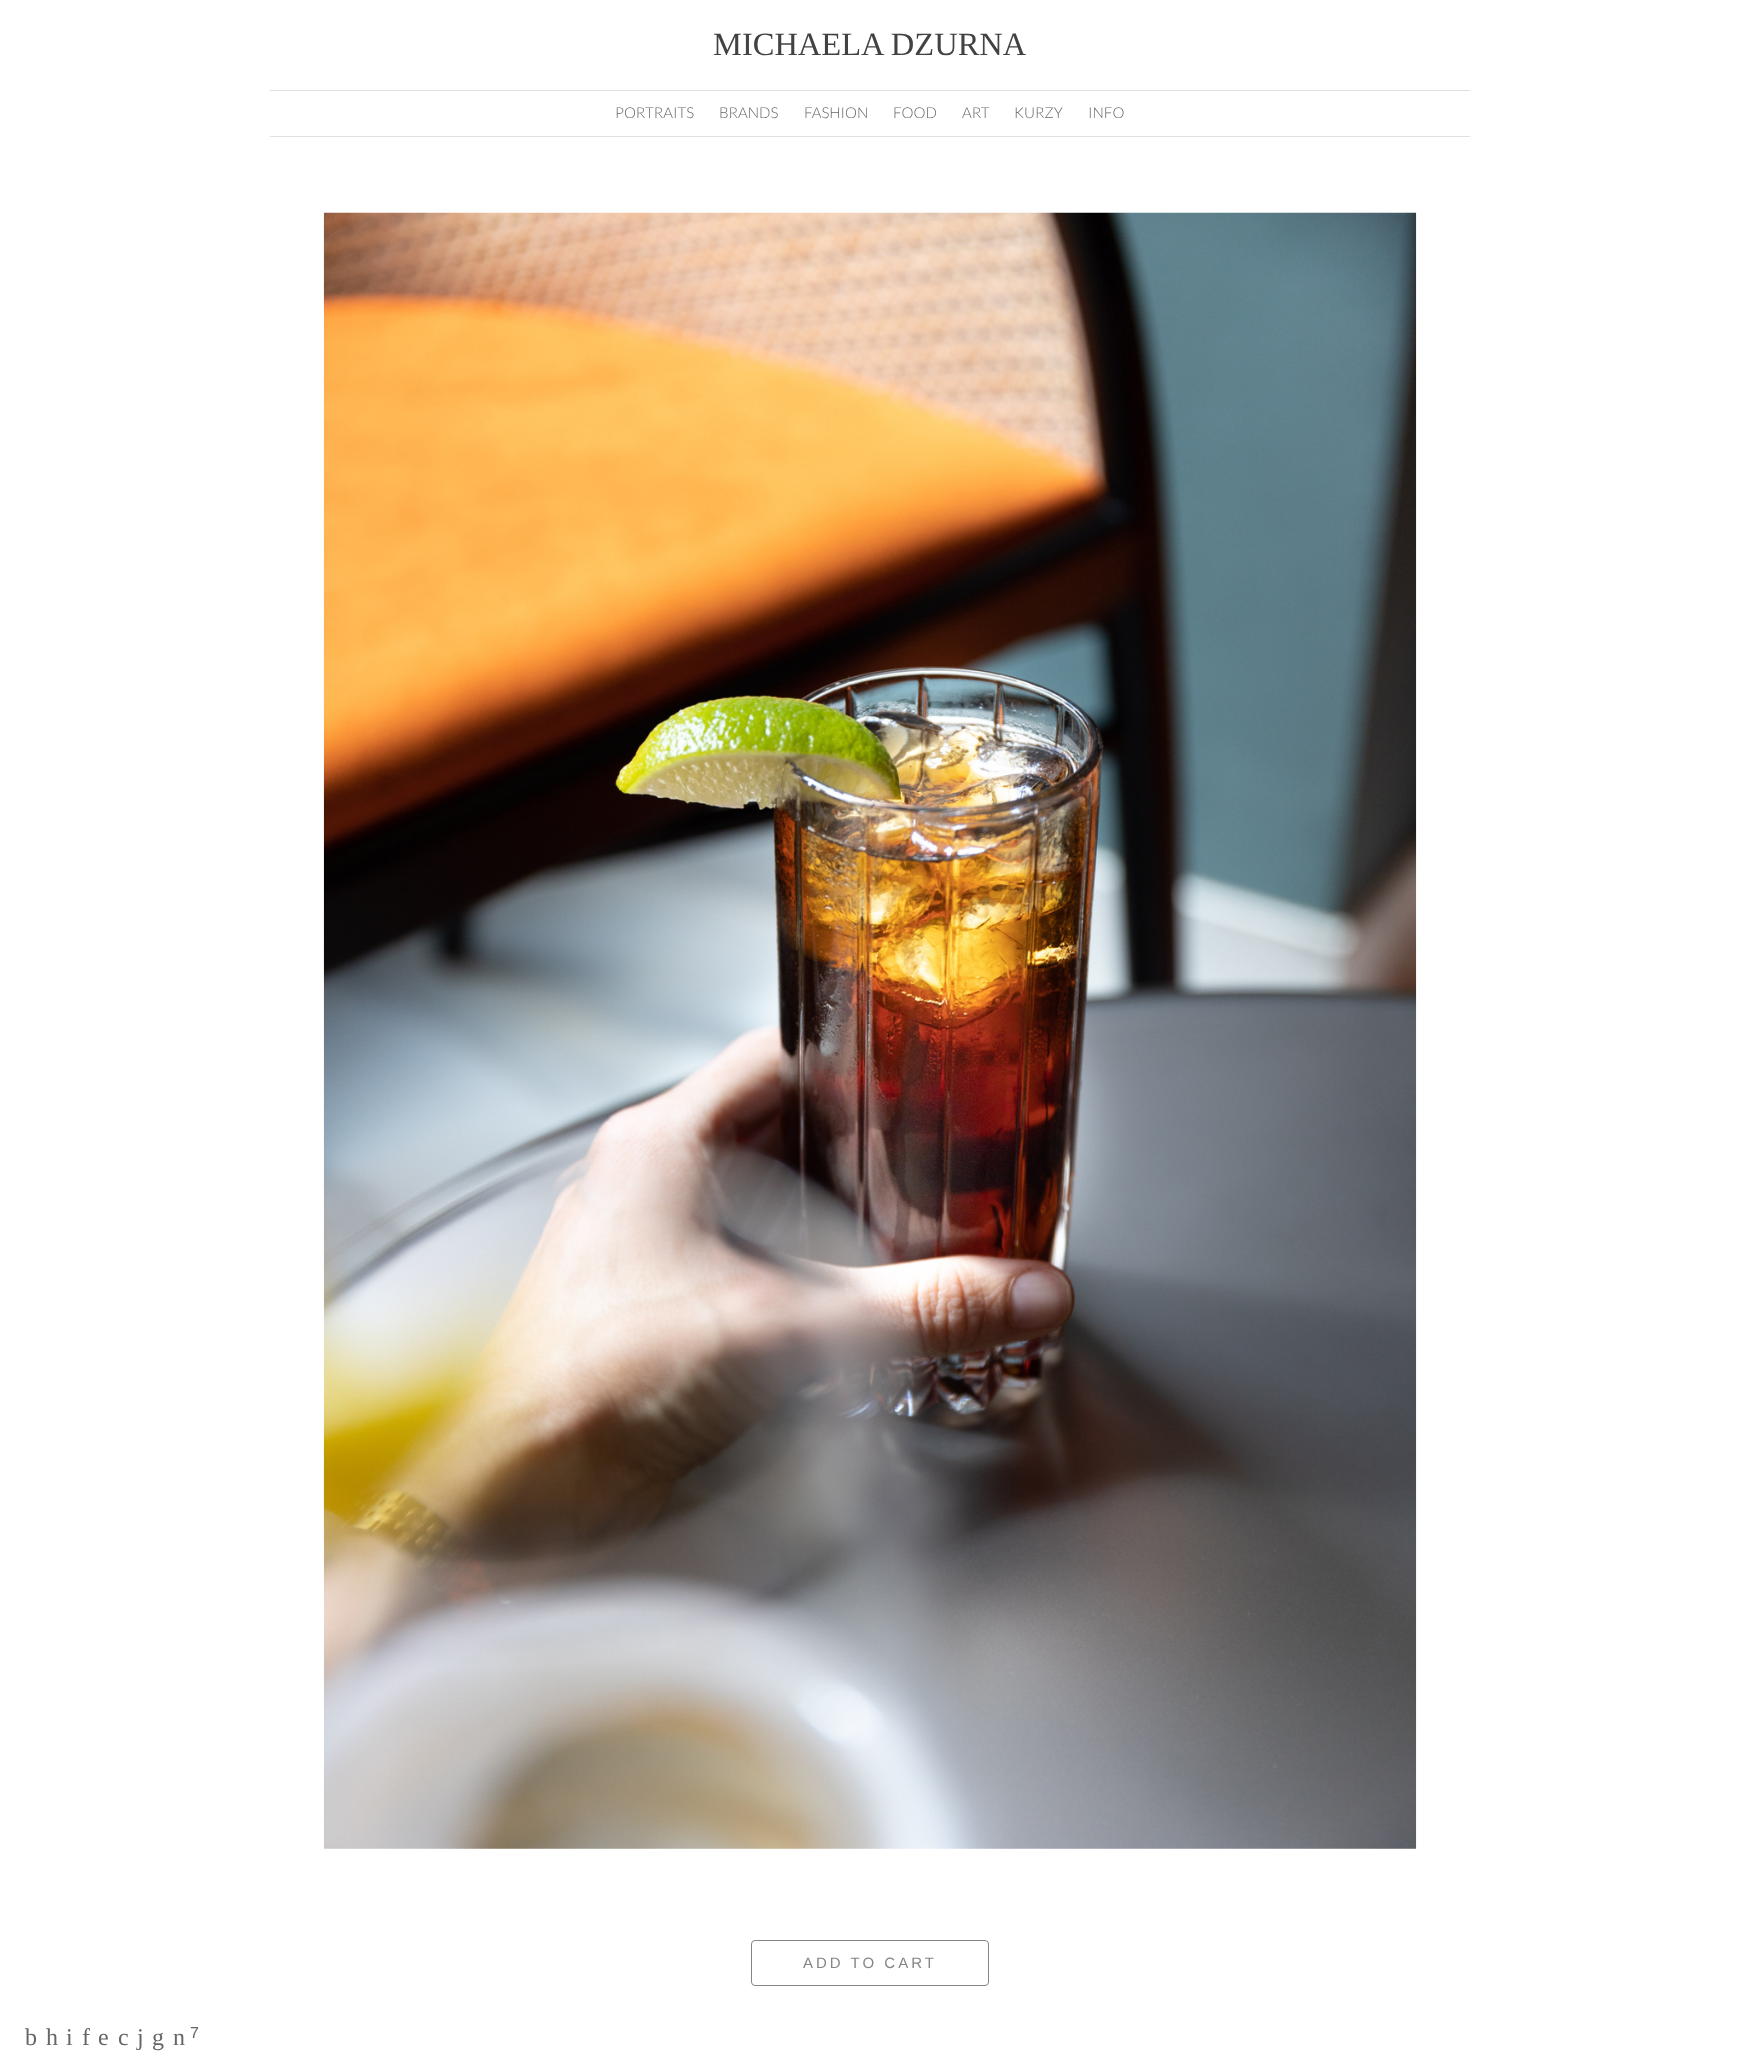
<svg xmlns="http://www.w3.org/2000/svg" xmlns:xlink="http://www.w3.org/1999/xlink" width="1739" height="2063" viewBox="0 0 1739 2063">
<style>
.cls-1{font:32.5px Liberation Serif;fill:#424242}
.cls-2{font:300 15px Lato;fill:#666666}
.cls-3{font:15px Liberation Sans;letter-spacing:3px;fill:#858585}
.cls-4{font:24px Liberation Serif;fill:#666666}
.cls-5{font:16px Liberation Sans;fill:#666666}
</style>
<rect width="100%" height="100%" fill="#ffffff"/>
<rect fill="#e0e0e0" x="270" y="90" width="1200" height="1"/>
<rect fill="#e0e0e0" x="270" y="136" width="1200" height="1"/>
<image xlink:href="image0.png" x="323" y="212" width="1094" height="1637"/>
<rect fill="none" stroke="#858585" x="751.5" y="1940.5" width="237" height="45" rx="3.5"/>
<text class="cls-1" x="713" y="55">MICHAELA DZURNA</text>
<text class="cls-2" x="615" y="118">PORTRAITS</text>
<text class="cls-2" x="719" y="118">BRANDS</text>
<text class="cls-2" x="804" y="118">FASHION</text>
<text class="cls-2" x="893" y="118">FOOD</text>
<text class="cls-2" x="962" y="118">ART</text>
<text class="cls-2" x="1014" y="118">KURZY</text>
<text class="cls-2" x="1088" y="118">INFO</text>
<text class="cls-3" x="803" y="1968">ADD TO CART</text>
<text class="cls-4" x="25" y="2045">b</text>
<text class="cls-4" x="46" y="2045">h</text>
<text class="cls-4" x="66" y="2045">i</text>
<text class="cls-4" x="82" y="2045">f</text>
<text class="cls-4" x="98" y="2045">e</text>
<text class="cls-4" x="118" y="2045">c</text>
<text class="cls-4" x="137" y="2045">j</text>
<text class="cls-4" x="152" y="2045">g</text>
<text class="cls-4" x="173" y="2045">n</text>
<text class="cls-5" x="190" y="2038">7</text>
</svg>
